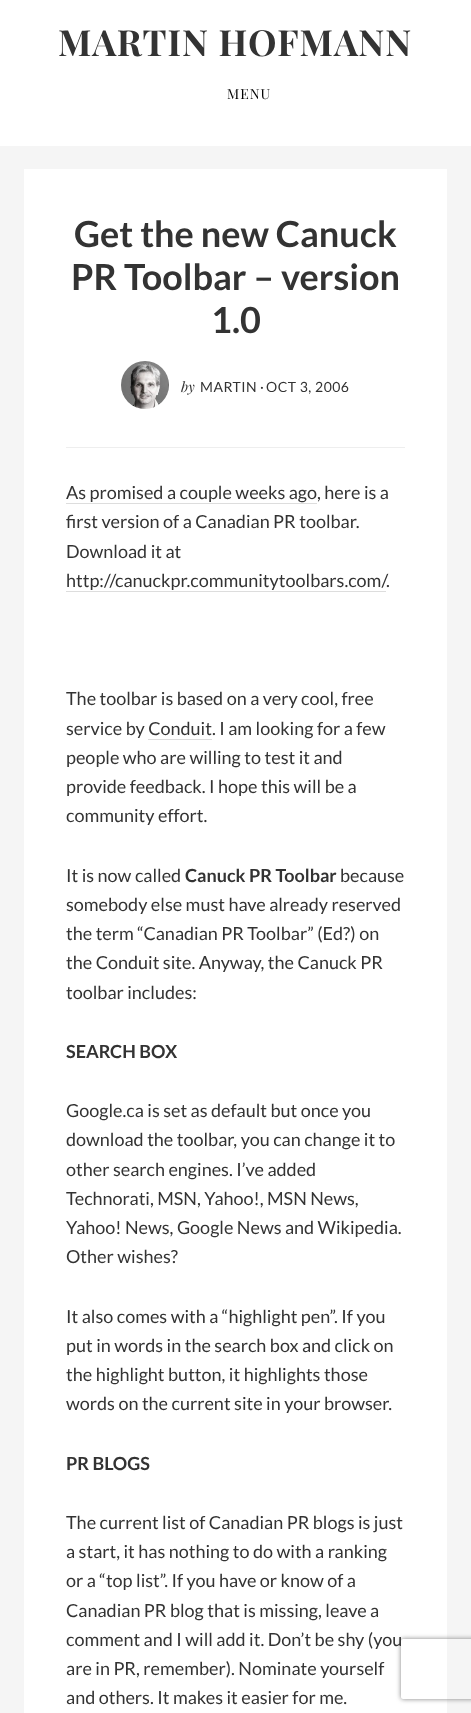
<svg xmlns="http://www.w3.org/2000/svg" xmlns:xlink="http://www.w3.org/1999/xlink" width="471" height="1713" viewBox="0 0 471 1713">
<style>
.cls-1{font:bold 36px Playfair Display;letter-spacing:1px;fill:#333333}
.cls-2{font:14px Playfair Display;letter-spacing:1px;fill:#000000}
.cls-3{font:bold 36px Lato;fill:#333333}
.cls-4{font:italic 14px Playfair Display;fill:#333333}
.cls-5{font:14px Lato;letter-spacing:0.5px;fill:#333333}
.cls-6{font:14px Lato;fill:#333333}
.cls-7{font:18px Lato;fill:#333333}
.cls-8{font:bold 18px Lato;fill:#333333}
</style>
<defs>
<clipPath id="clip1"><path d="M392 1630H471V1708H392ZM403 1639H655C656 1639 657 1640 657 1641V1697C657 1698 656 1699 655 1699H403C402 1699 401 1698 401 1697V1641C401 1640 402 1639 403 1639Z" clip-rule="evenodd"/></clipPath>
</defs>
<rect width="100%" height="100%" fill="#f5f5f5"/>
<rect fill="#ffffff" x="0" y="0" width="471" height="146"/>
<rect fill="#ffffff" x="24" y="169" width="423" height="1544"/>
<rect fill="#eeeeee" x="66" y="447" width="339" height="1"/>
<image xlink:href="image0.png" x="121" y="361" width="48" height="48"/>
<rect fill="#dddddd" x="66" y="503" width="251" height="1"/>
<rect fill="#dddddd" x="66" y="591" width="320" height="1"/>
<rect fill="#dddddd" x="148" y="739" width="64" height="1"/>
<g clip-path="url(#clip1)">
<rect fill="#808080" filter="blur(2.5px)" x="401" y="1639" width="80" height="60" rx="2"/>
</g>
<text class="cls-1" x="58" y="56">MARTIN HOFMANN</text>
<text class="cls-2" x="227" y="99">MENU</text>
<text class="cls-3" x="74" y="247">Get the new Canuck</text>
<text class="cls-3" x="71" y="290">PR Toolbar – version</text>
<text class="cls-3" x="211" y="333">1.0</text>
<text class="cls-4" x="181" y="392">by</text>
<text class="cls-5" x="200" y="392">MARTIN</text>
<text class="cls-6" x="260" y="392">·</text>
<text class="cls-5" x="266" y="392">OCT 3, 2006</text>
<text class="cls-7"><tspan x="66" y="499">As promised a couple weeks ago, here is a</tspan><tspan x="66" y="528">first version of a Canadian PR toolbar.</tspan><tspan x="66" y="558">Download it at</tspan><tspan x="66" y="587">http://canuckpr.communitytoolbars.com/</tspan></text>
<text class="cls-7" x="386" y="587">.</text>
<text class="cls-7"><tspan x="66" y="705">The toolbar is based on a very cool, free</tspan><tspan x="66" y="735">service by Conduit. I am looking for a few</tspan><tspan x="66" y="764">people who are willing to test it and</tspan><tspan x="66" y="793">provide feedback. I hope this will be a</tspan><tspan x="66" y="822">community effort.</tspan></text>
<text class="cls-7" x="66" y="882">It is now called</text>
<text class="cls-8" x="185" y="882">Canuck PR Toolbar</text>
<text class="cls-7" x="340" y="882">because</text>
<text class="cls-7"><tspan x="66" y="911">somebody else must have already reserved</tspan><tspan x="66" y="940">the term “Canadian PR Toolbar” (Ed?) on</tspan><tspan x="66" y="969">the Conduit site. Anyway, the Canuck PR</tspan><tspan x="66" y="999">toolbar includes:</tspan></text>
<text class="cls-8" x="66" y="1058">SEARCH BOX</text>
<text class="cls-7"><tspan x="66" y="1117">Google.ca is set as default but once you</tspan><tspan x="66" y="1146">download the toolbar, you can change it to</tspan><tspan x="66" y="1176">other search engines. I’ve added</tspan><tspan x="66" y="1205">Technorati, MSN, Yahoo!, MSN News,</tspan><tspan x="66" y="1234">Yahoo! News, Google News and Wikipedia.</tspan><tspan x="66" y="1263">Other wishes?</tspan></text>
<text class="cls-7"><tspan x="66" y="1323">It also comes with a “highlight pen”. If you</tspan><tspan x="66" y="1352">put in words in the search box and click on</tspan><tspan x="66" y="1381">the highlight button, it highlights those</tspan><tspan x="66" y="1410">words on the current site in your browser.</tspan></text>
<text class="cls-8" x="66" y="1470">PR BLOGS</text>
<text class="cls-7"><tspan x="66" y="1529">The current list of Canadian PR blogs is just</tspan><tspan x="66" y="1558">a start, it has nothing to do with a ranking</tspan><tspan x="66" y="1587">or a “top list”. If you have or know of a</tspan><tspan x="66" y="1617">Canadian PR blog that is missing, leave a</tspan><tspan x="66" y="1646">comment and I will add it. Don’t be shy (you</tspan><tspan x="66" y="1675">are in PR, remember). Nominate yourself</tspan><tspan x="66" y="1704">and others. It makes it easier for me.</tspan></text>
</svg>
